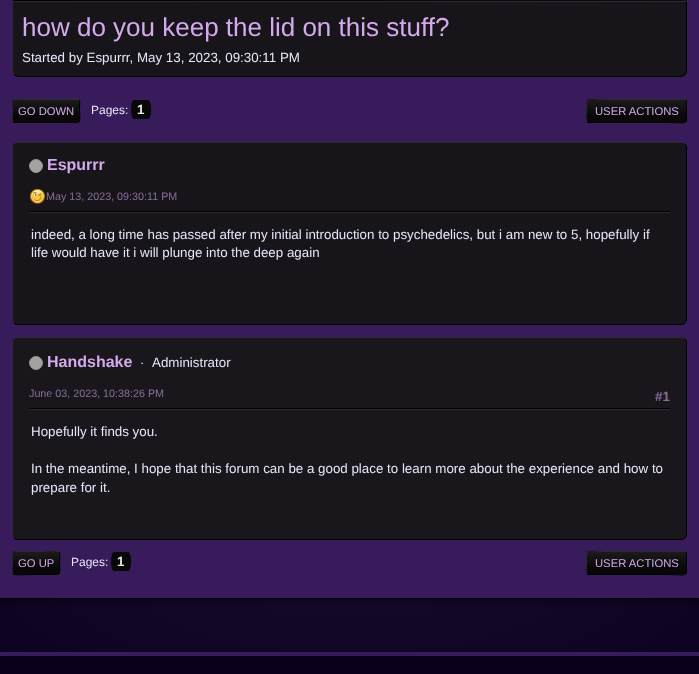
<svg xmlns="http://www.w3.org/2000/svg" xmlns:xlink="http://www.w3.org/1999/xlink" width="699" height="674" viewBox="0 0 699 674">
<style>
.cls-1{font:26px Liberation Sans;fill:#d3aaed}
.cls-2{font:13.35px Liberation Sans;fill:#e6e6fa}
.cls-3{font:11.25px Liberation Sans;fill:#d3aaed}
.cls-4{font:12px Liberation Sans;fill:#e6e6fa}
.cls-5{font:bold 13.35px Liberation Sans;fill:#e6e6e6}
.cls-6{font:bold 16px Liberation Sans;fill:#d3aaed}
.cls-7{font:10.75px Liberation Sans;fill:#886e98}
.cls-8{font:bold 13.35px Liberation Sans;fill:#886e98}
</style>
<defs>
<radialGradient id="g1" gradientUnits="userSpaceOnUse" cx="350" cy="198" r="625"><stop offset="0" stop-color="#27173e"/><stop offset="1" stop-color="#0a001e"/></radialGradient>
<clipPath id="clip1"><rect x="12" y="99" width="68" height="24" rx="3"/></clipPath>
<linearGradient id="g2" gradientUnits="userSpaceOnUse" x1="46" y1="100" x2="46" y2="122"><stop offset="0" stop-color="#1b1b1b"/><stop offset="0.7" stop-color="#080808"/></linearGradient>
<clipPath id="clip2"><rect x="12" y="92" width="675" height="38"/></clipPath>
<clipPath id="clip3"><rect x="586" y="99" width="101" height="24" rx="3"/></clipPath>
<linearGradient id="g3" gradientUnits="userSpaceOnUse" x1="637" y1="78" x2="637" y2="100"><stop offset="0" stop-color="#1b1b1b"/><stop offset="0.7" stop-color="#080808"/></linearGradient>
<linearGradient id="g4" gradientUnits="userSpaceOnUse" x1="637" y1="100" x2="637" y2="122"><stop offset="0" stop-color="#1b1b1b"/><stop offset="0.7" stop-color="#080808"/></linearGradient>
<linearGradient id="g5" gradientUnits="userSpaceOnUse" x1="637" y1="122" x2="637" y2="144"><stop offset="0" stop-color="#1b1b1b"/><stop offset="0.7" stop-color="#080808"/></linearGradient>
<clipPath id="clip4"><rect x="12" y="551" width="48" height="24" rx="3"/></clipPath>
<linearGradient id="g6" gradientUnits="userSpaceOnUse" x1="36" y1="530" x2="36" y2="552"><stop offset="0" stop-color="#1b1b1b"/><stop offset="0.7" stop-color="#080808"/></linearGradient>
<linearGradient id="g7" gradientUnits="userSpaceOnUse" x1="36" y1="552" x2="36" y2="574"><stop offset="0" stop-color="#1b1b1b"/><stop offset="0.7" stop-color="#080808"/></linearGradient>
<linearGradient id="g8" gradientUnits="userSpaceOnUse" x1="36" y1="574" x2="36" y2="596"><stop offset="0" stop-color="#1b1b1b"/><stop offset="0.7" stop-color="#080808"/></linearGradient>
<clipPath id="clip5"><rect x="12" y="544" width="675" height="38"/></clipPath>
<clipPath id="clip6"><rect x="586" y="551" width="101" height="24" rx="3"/></clipPath>
<linearGradient id="g9" gradientUnits="userSpaceOnUse" x1="637" y1="530" x2="637" y2="552"><stop offset="0" stop-color="#1b1b1b"/><stop offset="0.7" stop-color="#080808"/></linearGradient>
<linearGradient id="g10" gradientUnits="userSpaceOnUse" x1="637" y1="552" x2="637" y2="574"><stop offset="0" stop-color="#1b1b1b"/><stop offset="0.7" stop-color="#080808"/></linearGradient>
<linearGradient id="g11" gradientUnits="userSpaceOnUse" x1="637" y1="574" x2="637" y2="596"><stop offset="0" stop-color="#1b1b1b"/><stop offset="0.7" stop-color="#080808"/></linearGradient>
</defs>
<rect width="100%" height="100%" fill="#ffffff"/>
<rect fill="url(#g1)" x="0" y="599" width="699" height="53"/>
<rect fill="#000000" fill-opacity="0.3" filter="blur(2.5px)" x="-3" y="-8" width="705" height="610"/>
<rect fill="#371b5b" x="0" y="0" width="699" height="598"/>
<rect fill="#000000" x="0" y="598" width="699" height="1"/>
<rect fill="#171519" x="12" y="-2" width="675" height="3" rx="2"/>
<path fill="none" stroke="#000000" d="M686-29C687-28 687-.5 686 0L14 .5L13 0"/>
<path fill="#171519" d="M12 1H687V70C687 74 684 77 680 77H19C15 77 12 74 12 70Z"/>
<path fill="#302832" d="M12 1L13 2H686L687 1Z"/>
<path fill="#000000" d="M687 1L686 2V70C686 72 685 73 684 74L685 75C686 74 687 72 687 70Z"/>
<path fill="#000000" d="M19 77H680C682 77 684 76 685 75L684 74C683 75 682 76 680 76H19C18 76 16 75 15 74L14 75C15 76 17 77 19 77Z"/>
<path fill="#302832" d="M13 2L12 1V70C12 72 13 74 14 75L15 74C14 73 13 72 13 70Z"/>
<g clip-path="url(#clip1)">
<rect fill="url(#g2)" x="12" y="100" width="68" height="22"/>
</g>
<path fill="none" stroke="#000000" d="M79 100C80.5 102 79.5 106 79.5 108C79.5 124.5 83 122.5 66.5 122.5H15L13 122"/>
<g clip-path="url(#clip2)">
<path fill="none" stroke="#302832" d="M13 122C11.5 120 12.5 116 12.5 114C12.5 97.5 9 99.5 25.5 99.5H77L79 100"/>
</g>
<path fill="#080808" d="M134 100H137V119H133.5C130 116.5 130.5 100 134 100Z"/>
<rect fill="#080808" x="137" y="100" width="8" height="19"/>
<path fill="#080808" d="M145 100H148.5C152 102.5 152 116.5 148.5 119H145Z"/>
<g clip-path="url(#clip3)">
<rect fill="url(#g3)" x="586" y="99" width="101" height="1"/>
<rect fill="url(#g4)" x="586" y="100" width="101" height="22"/>
<rect fill="url(#g5)" x="586" y="122" width="101" height="1"/>
</g>
<g clip-path="url(#clip2)">
<path fill="none" stroke="#000000" d="M686 100C687.5 102 686.5 109 686.5 111C686.5 126.5 687.5 122.5 668 122.5H589L587 122"/>
</g>
<path fill="none" stroke="#302832" d="M587 122C585.5 120 586.5 113 586.5 111C586.5 95.5 585.5 99.5 605 99.5H684L686 100"/>
<rect fill="#171519" x="12" y="142" width="675" height="183" rx="6"/>
<path fill="none" stroke="#000000" d="M685 144C686 145 686.5 146.5 686.5 148V319C686.5 320.5 686 322 685 323C684 324 682.5 324.5 681 324.5H18C16.5 324.5 15 324 14 323"/>
<path fill="none" stroke="#302832" d="M14 323C13 322 12.5 320.5 12.5 319V148C12.5 146.5 13 145 14 144C15 143 16.5 142.5 18 142.5H681C682.5 142.5 684 143 685 144"/>
<circle fill="#a7a2a2" stroke="#969292" cx="36" cy="166" r="6.5"/>
<image xlink:href="image0.png" x="30" y="189" width="15" height="15"/>
<rect fill="#302832" x="29" y="212" width="641" height="1"/>
<rect fill="#000000" x="29" y="211" width="641" height="1"/>
<rect fill="#19171c" x="12" y="337" width="675" height="203" rx="6"/>
<path fill="none" stroke="#000000" d="M685 339C686 340 686.5 341.5 686.5 343V534C686.5 535.5 686 537 685 538C684 539 682.5 539.5 681 539.5H18C16.5 539.5 15 539 14 538"/>
<path fill="none" stroke="#302832" d="M14 538C13 537 12.5 535.5 12.5 534V343C12.5 341.5 13 340 14 339C15 338 16.5 337.5 18 337.5H681C682.5 337.5 684 338 685 339"/>
<circle fill="#a7a2a2" stroke="#969292" cx="36" cy="363" r="6.5"/>
<rect fill="#302832" x="29" y="409" width="641" height="1"/>
<rect fill="#000000" x="29" y="408" width="641" height="1"/>
<g clip-path="url(#clip4)">
<rect fill="url(#g6)" x="12" y="551" width="48" height="1"/>
<rect fill="url(#g7)" x="12" y="552" width="48" height="22"/>
<rect fill="url(#g8)" x="12" y="574" width="48" height="1"/>
</g>
<path fill="none" stroke="#000000" d="M59 552C60.5 554 59.5 561 59.5 563C59.5 575 62 574.5 50 574.5H29C26.5 574.5 15 575.5 13 574"/>
<g clip-path="url(#clip5)">
<path fill="none" stroke="#302832" d="M13 574C11.5 572 12.5 565 12.5 563C12.5 551 10 551.5 22 551.5H43C45.5 551.5 57 550.5 59 552"/>
</g>
<path fill="#080808" d="M114 552H117V571H113.5C110 568.5 110.5 552 114 552Z"/>
<rect fill="#080808" x="117" y="552" width="8" height="19"/>
<path fill="#080808" d="M125 552H128.5C132 554.5 132 568.5 128.5 571H125Z"/>
<g clip-path="url(#clip6)">
<rect fill="url(#g9)" x="586" y="551" width="101" height="1"/>
<rect fill="url(#g10)" x="586" y="552" width="101" height="22"/>
<rect fill="url(#g11)" x="586" y="574" width="101" height="1"/>
</g>
<g clip-path="url(#clip5)">
<path fill="none" stroke="#000000" d="M686 552C687.5 554 686.5 561 686.5 563C686.5 578.5 687.5 574.5 668 574.5H589L587 574"/>
</g>
<path fill="none" stroke="#302832" d="M587 574C585.5 572 586.5 565 586.5 563C586.5 547.5 585.5 551.5 605 551.5H684L686 552"/>
<rect fill="#0a001e" x="0" y="656" width="699" height="18"/>
<rect fill="#371b5b" x="0" y="652" width="699" height="4"/>
<text class="cls-1" x="22" y="36">how do you keep the lid on this stuff?</text>
<text class="cls-2" x="22" y="62">Started by Espurrr, May 13, 2023, 09:30:11 PM</text>
<text class="cls-3" x="18" y="115">GO DOWN</text>
<text class="cls-4" x="91" y="114">Pages:</text>
<text class="cls-5" x="137" y="114">1</text>
<text class="cls-3" x="595" y="115">USER ACTIONS</text>
<text class="cls-6" x="47" y="170">Espurrr</text>
<text class="cls-7" x="46" y="200">May 13, 2023, 09:30:11 PM</text>
<text class="cls-2"><tspan x="31" y="239">indeed, a long time has passed after my initial introduction to psychedelics, but i am new to 5, hopefully if</tspan><tspan x="31" y="257">life would have it i will plunge into the deep again</tspan></text>
<text class="cls-6" x="47" y="367">Handshake</text>
<text class="cls-2" x="140" y="367">·</text>
<text class="cls-2" x="152" y="367">Administrator</text>
<text class="cls-7" x="29" y="397">June 03, 2023, 10:38:26 PM</text>
<text class="cls-8" x="655" y="401">#1</text>
<text class="cls-2" x="31" y="436">Hopefully it finds you.</text>
<text class="cls-2"><tspan x="31" y="473">In the meantime, I hope that this forum can be a good place to learn more about the experience and how to</tspan><tspan x="31" y="492">prepare for it.</tspan></text>
<text class="cls-3" x="18" y="567">GO UP</text>
<text class="cls-4" x="71" y="566">Pages:</text>
<text class="cls-5" x="117" y="566">1</text>
<text class="cls-3" x="595" y="567">USER ACTIONS</text>
</svg>
